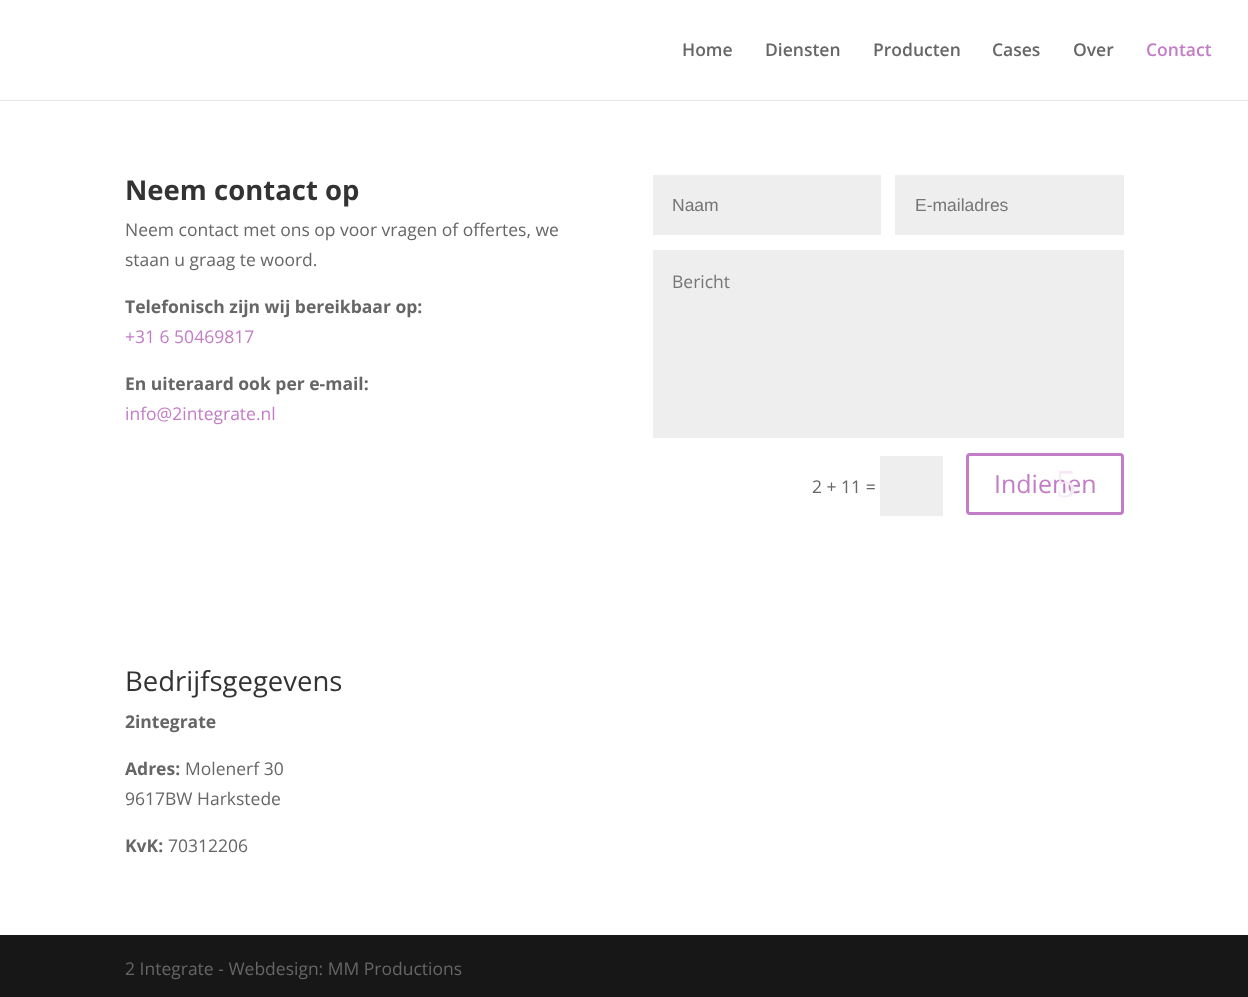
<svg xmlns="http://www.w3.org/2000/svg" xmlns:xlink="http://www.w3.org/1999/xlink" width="1248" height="997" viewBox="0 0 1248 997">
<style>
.cls-1{font:600 17.5px Open Sans;fill:#666666}
.cls-2{font:600 17.5px Open Sans;fill:#c37cc6}
.cls-3{font:bold 27.5px Open Sans;fill:#333333}
.cls-4{font:17.5px Open Sans;fill:#666666}
.cls-5{font:bold 17.5px Open Sans;fill:#666666}
.cls-6{font:17.5px Open Sans;fill:#c37cc6}
.cls-7{font:17.5px Liberation Sans;fill:#757575}
.cls-8{font:17.5px Open Sans;fill:#757575}
.cls-9{font:25px Open Sans;fill:#c37cc6}
.cls-10{font:40px Liberation Serif;fill:#f5eaf6}
.cls-11{font:27.5px Open Sans;fill:#333333}
</style>
<rect width="100%" height="100%" fill="#ffffff"/>
<path fill="#e6e6e6" d="M0 100V101H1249V1V100Z"/>
<rect fill="#eeeeee" x="653" y="175" width="228" height="60"/>
<rect fill="#eeeeee" x="895" y="175" width="229" height="60"/>
<rect fill="#eeeeee" x="653" y="250" width="471" height="188"/>
<rect fill="#eeeeee" x="880" y="456" width="63" height="60"/>
<rect fill="none" stroke="#c37cc6" stroke-width="3" x="967.5" y="454.5" width="155" height="59" rx="2.5"/>
<rect fill="#171717" x="0" y="935" width="1248" height="62"/>
<text class="cls-1" x="682" y="56">Home</text>
<text class="cls-1" x="765" y="56">Diensten</text>
<text class="cls-1" x="873" y="56">Producten</text>
<text class="cls-1" x="992" y="56">Cases</text>
<text class="cls-1" x="1073" y="56">Over</text>
<text class="cls-2" x="1146" y="56">Contact</text>
<text class="cls-3" x="125" y="200">Neem contact op</text>
<text class="cls-4"><tspan x="125" y="236">Neem contact met ons op voor vragen of offertes, we</tspan><tspan x="125" y="266">staan u graag te woord.</tspan></text>
<text class="cls-5" x="125" y="313">Telefonisch zijn wij bereikbaar op:</text>
<text class="cls-6" x="125" y="343">+31 6 50469817</text>
<text class="cls-5" x="125" y="390">En uiteraard ook per e-mail:</text>
<text class="cls-6" x="125" y="420">info@2integrate.nl</text>
<text class="cls-7" x="672" y="211">Naam</text>
<text class="cls-7" x="915" y="211">E-mailadres</text>
<text class="cls-8" x="672" y="288">Bericht</text>
<text class="cls-4" x="812" y="493">2 + 11 =</text>
<text class="cls-9" x="994" y="493">Indienen</text>
<text class="cls-10" x="1056" y="497">5</text>
<text class="cls-11" x="125" y="691">Bedrijfsgegevens</text>
<text class="cls-5" x="125" y="728">2integrate</text>
<text class="cls-5" x="125" y="775">Adres:</text>
<text class="cls-4" x="185" y="775">Molenerf 30</text>
<text class="cls-4" x="125" y="805">9617BW Harkstede</text>
<text class="cls-5" x="125" y="852">KvK:</text>
<text class="cls-4" x="168" y="852">70312206</text>
<text class="cls-4" x="125" y="975">2 Integrate - Webdesign: MM Productions</text>
</svg>
